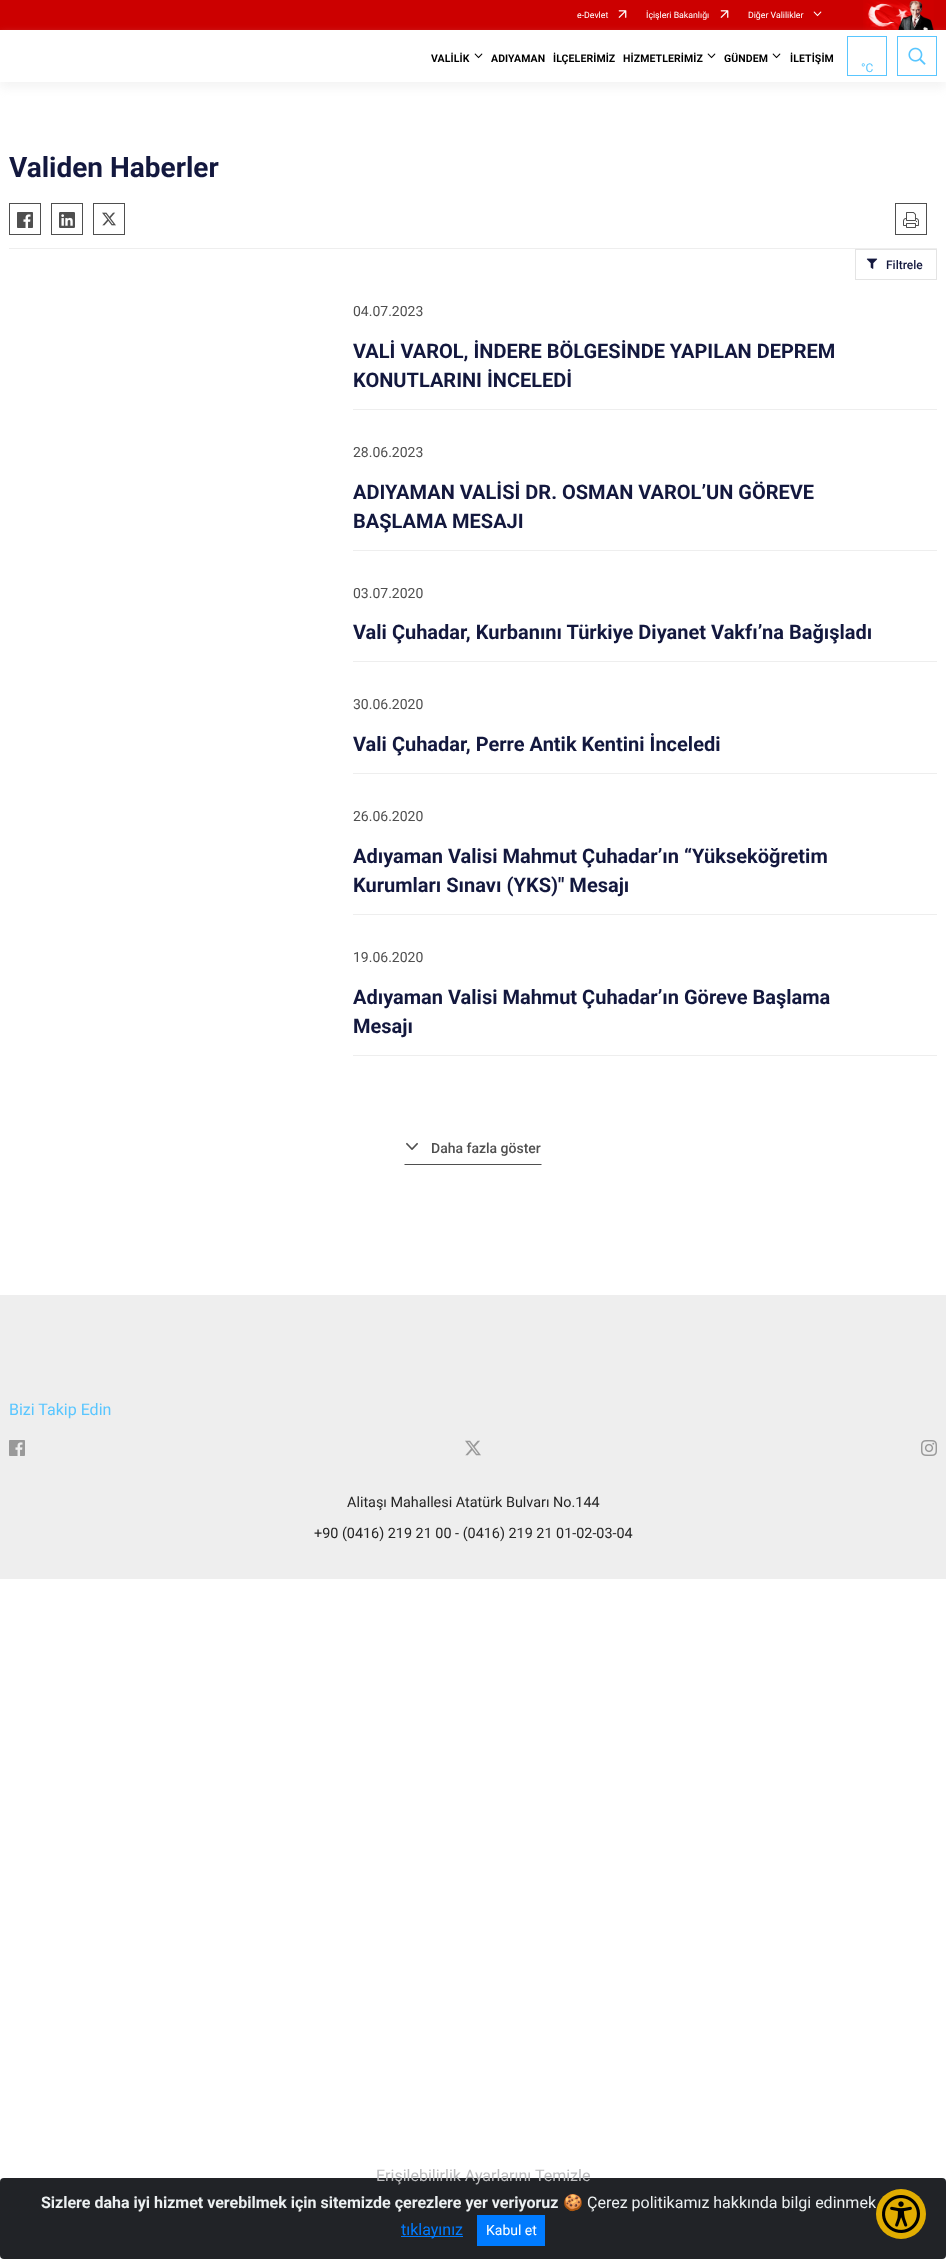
<svg xmlns="http://www.w3.org/2000/svg" xmlns:xlink="http://www.w3.org/1999/xlink" width="946" height="2259" viewBox="0 0 946 2259">
<style>
.cls-1{font:8.75px Roboto;fill:#ffffff}
.cls-2{font:bold 10.5px Roboto;letter-spacing:0.1px;fill:#000000}
.cls-3{font:12px Roboto;fill:#59c6ff}
.cls-4{font:bold 28px Roboto;fill:#13183e}
.cls-5{font:500 12px Roboto;fill:#13183e}
.cls-6{font:14px Roboto;fill:#4f4f4f}
.cls-7{font:bold 20px Roboto;fill:#13183e}
.cls-8{font:500 14px Roboto;fill:#4f4f4f}
.cls-9{font:16px Roboto;fill:#59c6ff}
.cls-10{font:14.4px Roboto;fill:#252525}
.cls-11{font:16px Roboto;fill:#bababc}
.cls-12{font:bold 16px Roboto;fill:#ecf0f1}
.cls-13{font:16px Noto Color Emoji;fill:#ecf0f1}
.cls-14{font:16px Roboto;fill:#ecf0f1}
.cls-15{font:16px Roboto;fill:#007bff}
.cls-16{font:14px Roboto;fill:#ffffff}
</style>
<defs>
<clipPath id="clip1"><path d="M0 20H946V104H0ZM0 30H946V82H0Z" clip-rule="evenodd"/></clipPath>
</defs>
<rect width="100%" height="100%" fill="#ffffff"/>
<rect fill="#cc0000" x="0" y="0" width="946" height="30"/>
<image xlink:href="image0.png" x="618" y="10" width="9" height="8"/>
<image xlink:href="image0.png" x="720" y="10" width="9" height="8"/>
<image xlink:href="image1.png" x="813" y="11" width="9" height="6"/>
<image xlink:href="image2.png" x="863" y="0" width="71" height="30"/>
<g clip-path="url(#clip1)">
<rect fill="#eeeeee" fill-opacity="0.62" filter="blur(5px)" x="0" y="36" width="946" height="52"/>
</g>
<image xlink:href="image3.png" x="474" y="53" width="9" height="6"/>
<image xlink:href="image3.png" x="707" y="53" width="9" height="6"/>
<image xlink:href="image3.png" x="772" y="53" width="9" height="6"/>
<rect fill="none" stroke="#59c6ff" x="847.5" y="36.5" width="39" height="39"/>
<rect fill="none" stroke="#59c6ff" x="897.5" y="36.5" width="39" height="39"/>
<image xlink:href="image4.png" x="908" y="47" width="18" height="18"/>
<rect fill="#eeeeee" x="9" y="248" width="928" height="1"/>
<rect fill="none" stroke="#4f4f4f" x="9.5" y="203.5" width="31" height="31"/>
<image xlink:href="image5.png" x="17" y="212" width="16" height="16"/>
<rect fill="none" stroke="#4f4f4f" x="51.5" y="203.5" width="31" height="31"/>
<image xlink:href="image6.png" x="59" y="212" width="16" height="16"/>
<rect fill="none" stroke="#4f4f4f" x="93.5" y="203.5" width="31" height="31"/>
<image xlink:href="image7.png" x="102" y="212" width="14" height="14"/>
<rect fill="none" stroke="#4f4f4f" x="895.5" y="203.5" width="31" height="31"/>
<image xlink:href="image8.png" x="903" y="212" width="16" height="16"/>
<rect fill="none" stroke="#e4e4e4" x="855.5" y="249.5" width="81" height="30"/>
<image xlink:href="image9.png" x="866" y="258" width="12" height="11"/>
<rect fill="#eeeeee" x="353" y="409" width="584" height="1"/>
<rect fill="#eeeeee" x="353" y="550" width="584" height="1"/>
<rect fill="#eeeeee" x="353" y="661" width="584" height="1"/>
<rect fill="#eeeeee" x="353" y="773" width="584" height="1"/>
<rect fill="#eeeeee" x="353" y="914" width="584" height="1"/>
<rect fill="#eeeeee" x="353" y="1055" width="584" height="1"/>
<path fill="#4f4f4f" d="M542 1165H404L405 1164H541Z"/>
<image xlink:href="image10.png" x="406" y="1142" width="12" height="8"/>
<rect fill="#eeeeee" x="0" y="1295" width="946" height="284"/>
<image xlink:href="image11.png" x="9" y="1440" width="16" height="16"/>
<image xlink:href="image12.png" x="465" y="1440" width="16" height="16"/>
<image xlink:href="image13.png" x="921" y="1440" width="16" height="16"/>
<rect fill="#212327" x="0" y="2178" width="946" height="81" rx="4"/>
<circle fill="#e1ad01" cx="901" cy="2214" r="25"/>
<image xlink:href="image14.png" x="882" y="2195" width="38" height="38"/>
<rect fill="#007bff" x="401" y="2236" width="62" height="1"/>
<rect fill="#007bff" x="477" y="2215" width="68" height="31"/>
<text class="cls-1" x="577" y="18">e-Devlet</text>
<text class="cls-1" x="646" y="18">İçişleri Bakanlığı</text>
<text class="cls-1" x="748" y="18">Diğer Valilikler</text>
<text class="cls-2" x="431" y="62">VALİLİK</text>
<text class="cls-2" x="491" y="62">ADIYAMAN</text>
<text class="cls-2" x="553" y="62">İLÇELERİMİZ</text>
<text class="cls-2" x="623" y="62">HİZMETLERİMİZ</text>
<text class="cls-2" x="724" y="62">GÜNDEM</text>
<text class="cls-2" x="790" y="62">İLETİŞİM</text>
<text class="cls-3" x="861" y="72">°C</text>
<text class="cls-4" x="9" y="177">Validen Haberler</text>
<text class="cls-5" x="886" y="269">Filtrele</text>
<text class="cls-6" x="353" y="316">04.07.2023</text>
<text class="cls-7"><tspan x="353" y="358">VALİ VAROL, İNDERE BÖLGESİNDE YAPILAN DEPREM</tspan><tspan x="353" y="387">KONUTLARINI İNCELEDİ</tspan></text>
<text class="cls-6" x="353" y="457">28.06.2023</text>
<text class="cls-7"><tspan x="353" y="499">ADIYAMAN VALİSİ DR. OSMAN VAROL’UN GÖREVE</tspan><tspan x="353" y="528">BAŞLAMA MESAJI</tspan></text>
<text class="cls-6" x="353" y="598">03.07.2020</text>
<text class="cls-7" x="353" y="639">Vali Çuhadar, Kurbanını Türkiye Diyanet Vakfı’na Bağışladı</text>
<text class="cls-6" x="353" y="709">30.06.2020</text>
<text class="cls-7" x="353" y="751">Vali Çuhadar, Perre Antik Kentini İnceledi</text>
<text class="cls-6" x="353" y="821">26.06.2020</text>
<text class="cls-7"><tspan x="353" y="863">Adıyaman Valisi Mahmut Çuhadar’ın “Yükseköğretim</tspan><tspan x="353" y="892">Kurumları Sınavı (YKS)" Mesajı</tspan></text>
<text class="cls-6" x="353" y="962">19.06.2020</text>
<text class="cls-7"><tspan x="353" y="1004">Adıyaman Valisi Mahmut Çuhadar’ın Göreve Başlama</tspan><tspan x="353" y="1033">Mesajı</tspan></text>
<text class="cls-8" x="431" y="1153">Daha fazla göster</text>
<text class="cls-9" x="9" y="1415">Bizi Takip Edin</text>
<text class="cls-10" x="347" y="1507">Alitaşı Mahallesi Atatürk Bulvarı No.144</text>
<text class="cls-10" x="314" y="1538">+90 (0416) 219 21 00 - (0416) 219 21 01-02-03-04</text>
<text class="cls-11" x="376" y="2181">Erişilebilirlik Ayarlarını Temizle</text>
<text class="cls-12" x="41" y="2208">Sizlere daha iyi hizmet verebilmek için sitemizde çerezlere yer veriyoruz</text>
<text class="cls-13" x="563" y="2208">🍪</text>
<text class="cls-14" x="587" y="2208">Çerez politikamız hakkında bilgi edinmek</text>
<text class="cls-15" x="401" y="2235">tıklayınız</text>
<text class="cls-16" x="486" y="2235">Kabul et</text>
</svg>
